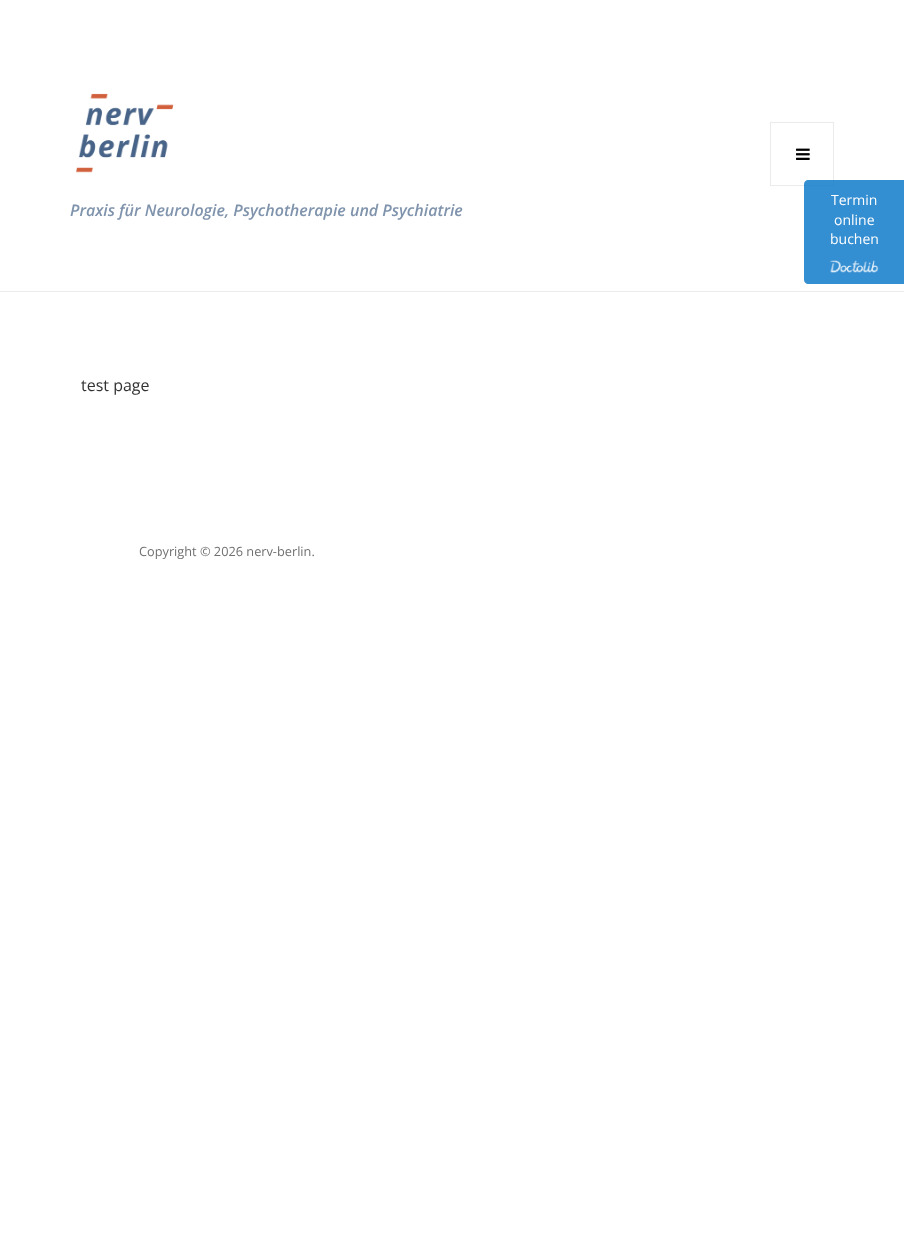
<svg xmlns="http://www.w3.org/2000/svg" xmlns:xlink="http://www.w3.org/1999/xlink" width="904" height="1258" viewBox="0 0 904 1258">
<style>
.cls-1{font:italic 600 16px Open Sans;fill:#7f93ac}
.cls-2{font:16px Open Sans;fill:#333333}
.cls-3{font:12.75px Open Sans;fill:#707070}
.cls-4{font:14px Open Sans;fill:#ffffff}
</style>
<rect width="100%" height="100%" fill="#ffffff"/>
<rect fill="#ebebeb" x="0" y="291" width="904" height="1"/>
<image xlink:href="image0.png" x="76" y="93" width="98" height="80"/>
<rect fill="none" stroke="#ebebeb" x="770.5" y="122.5" width="63" height="63"/>
<image xlink:href="image1.png" x="796" y="148" width="14" height="12"/>
<path fill="#107aca" fill-opacity="0.85" d="M808 180H904V284H808C806 284 804 282 804 280V184C804 182 806 180 808 180Z"/>
<image xlink:href="image2.png" x="830" y="260" width="49" height="13"/>
<text class="cls-1" x="70" y="216">Praxis für Neurologie, Psychotherapie und Psychiatrie</text>
<text class="cls-2" x="81" y="391">test page</text>
<text class="cls-3" x="139" y="556">Copyright © 2026 nerv-berlin.</text>
<text class="cls-4" x="831" y="205">Termin</text>
<text class="cls-4" x="834" y="225">online</text>
<text class="cls-4" x="830" y="244">buchen</text>
</svg>
